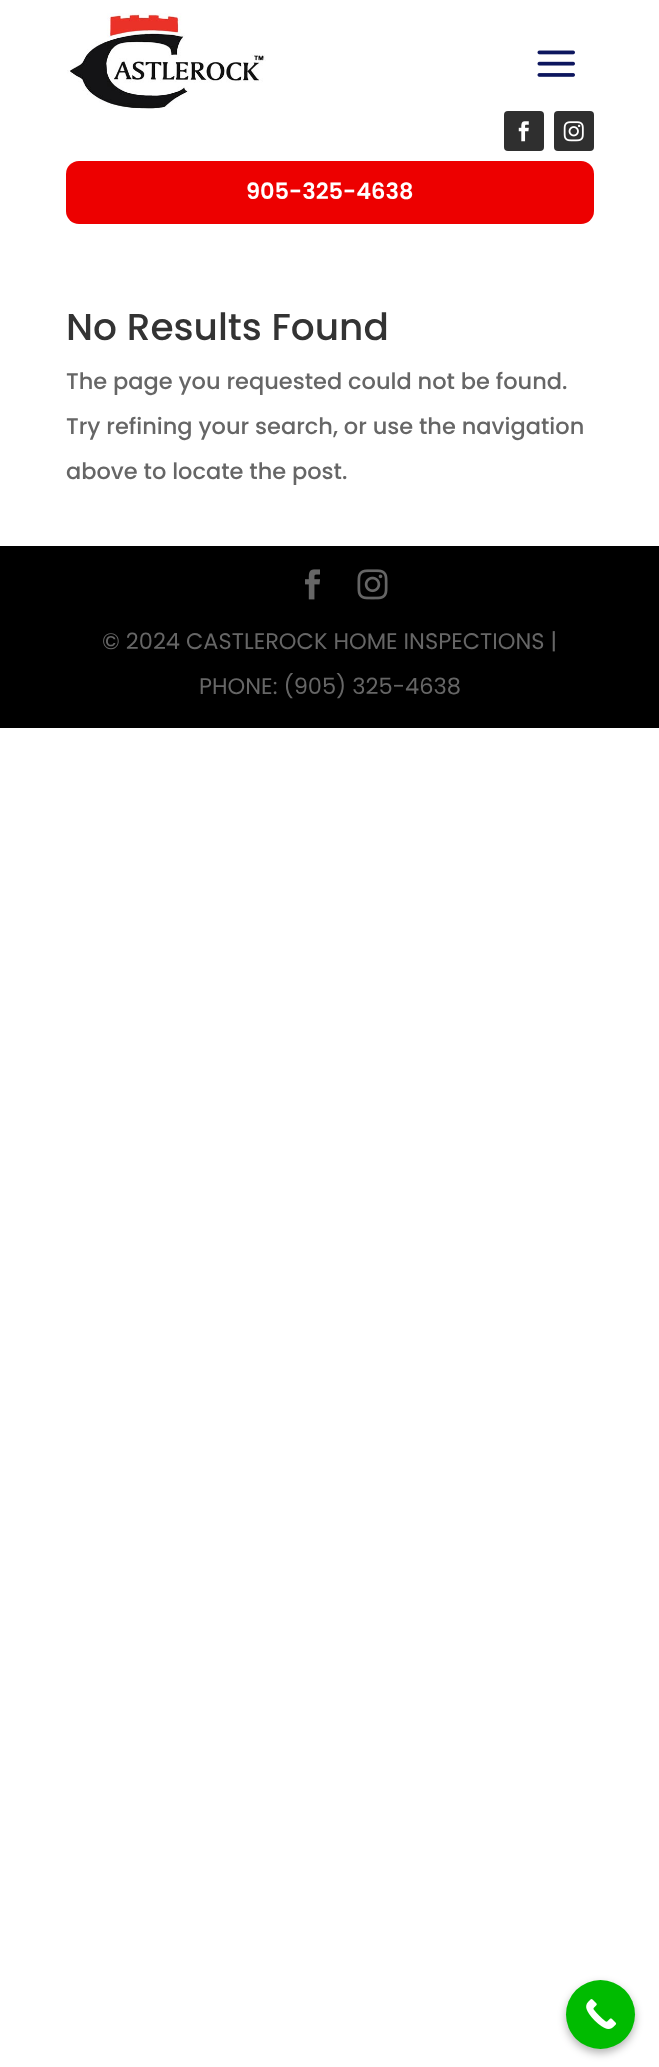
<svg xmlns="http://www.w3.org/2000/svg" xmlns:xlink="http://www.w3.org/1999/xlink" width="659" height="2067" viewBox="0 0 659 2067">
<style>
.cls-1{font:600 22.5px Poppins;fill:#ffffff}
.cls-2{font:500 37.5px Poppins;fill:#333333}
.cls-3{font:500 22.5px Poppins;fill:#666666}
.cls-4{font:22.5px Poppins;fill:#666666}
</style>
<rect width="100%" height="100%" fill="#ffffff"/>
<image xlink:href="image0.png" x="67" y="13" width="199" height="96"/>
<image xlink:href="image1.png" x="537" y="50" width="38" height="27"/>
<rect fill="#2f2f2f" x="504" y="111" width="40" height="40" rx="4"/>
<image xlink:href="image2.png" x="518" y="121" width="11" height="21"/>
<rect fill="#2f2f2f" x="554" y="111" width="40" height="40" rx="4"/>
<image xlink:href="image3.png" x="563" y="121" width="21" height="21"/>
<rect fill="#ed0000" x="66" y="161" width="528" height="63" rx="13"/>
<rect fill="#000000" x="0" y="546" width="659" height="182"/>
<image xlink:href="image4.png" x="305" y="569" width="15" height="31"/>
<image xlink:href="image5.png" x="357" y="569" width="31" height="31"/>
<rect fill="#000000" fill-opacity="0.3" filter="blur(4px)" x="566" y="1984" width="69" height="69" rx="34.5"/>
<circle fill="#00bb00" cx="600.5" cy="2014.5" r="34.5"/>
<image xlink:href="image6.png" x="586" y="1999" width="31" height="30"/>
<text class="cls-1" x="246" y="199">905-325-4638</text>
<text class="cls-2" x="66" y="340">No Results Found</text>
<text class="cls-3" x="66" y="389">The page you requested could not be found.</text>
<text class="cls-3" x="66" y="434">Try refining your search, or use the navigation</text>
<text class="cls-3" x="66" y="479">above to locate the post.</text>
<text class="cls-4" x="102" y="649">© 2024 CASTLEROCK HOME INSPECTIONS |</text>
<text class="cls-4" x="199" y="694">PHONE: (905) 325-4638</text>
</svg>
